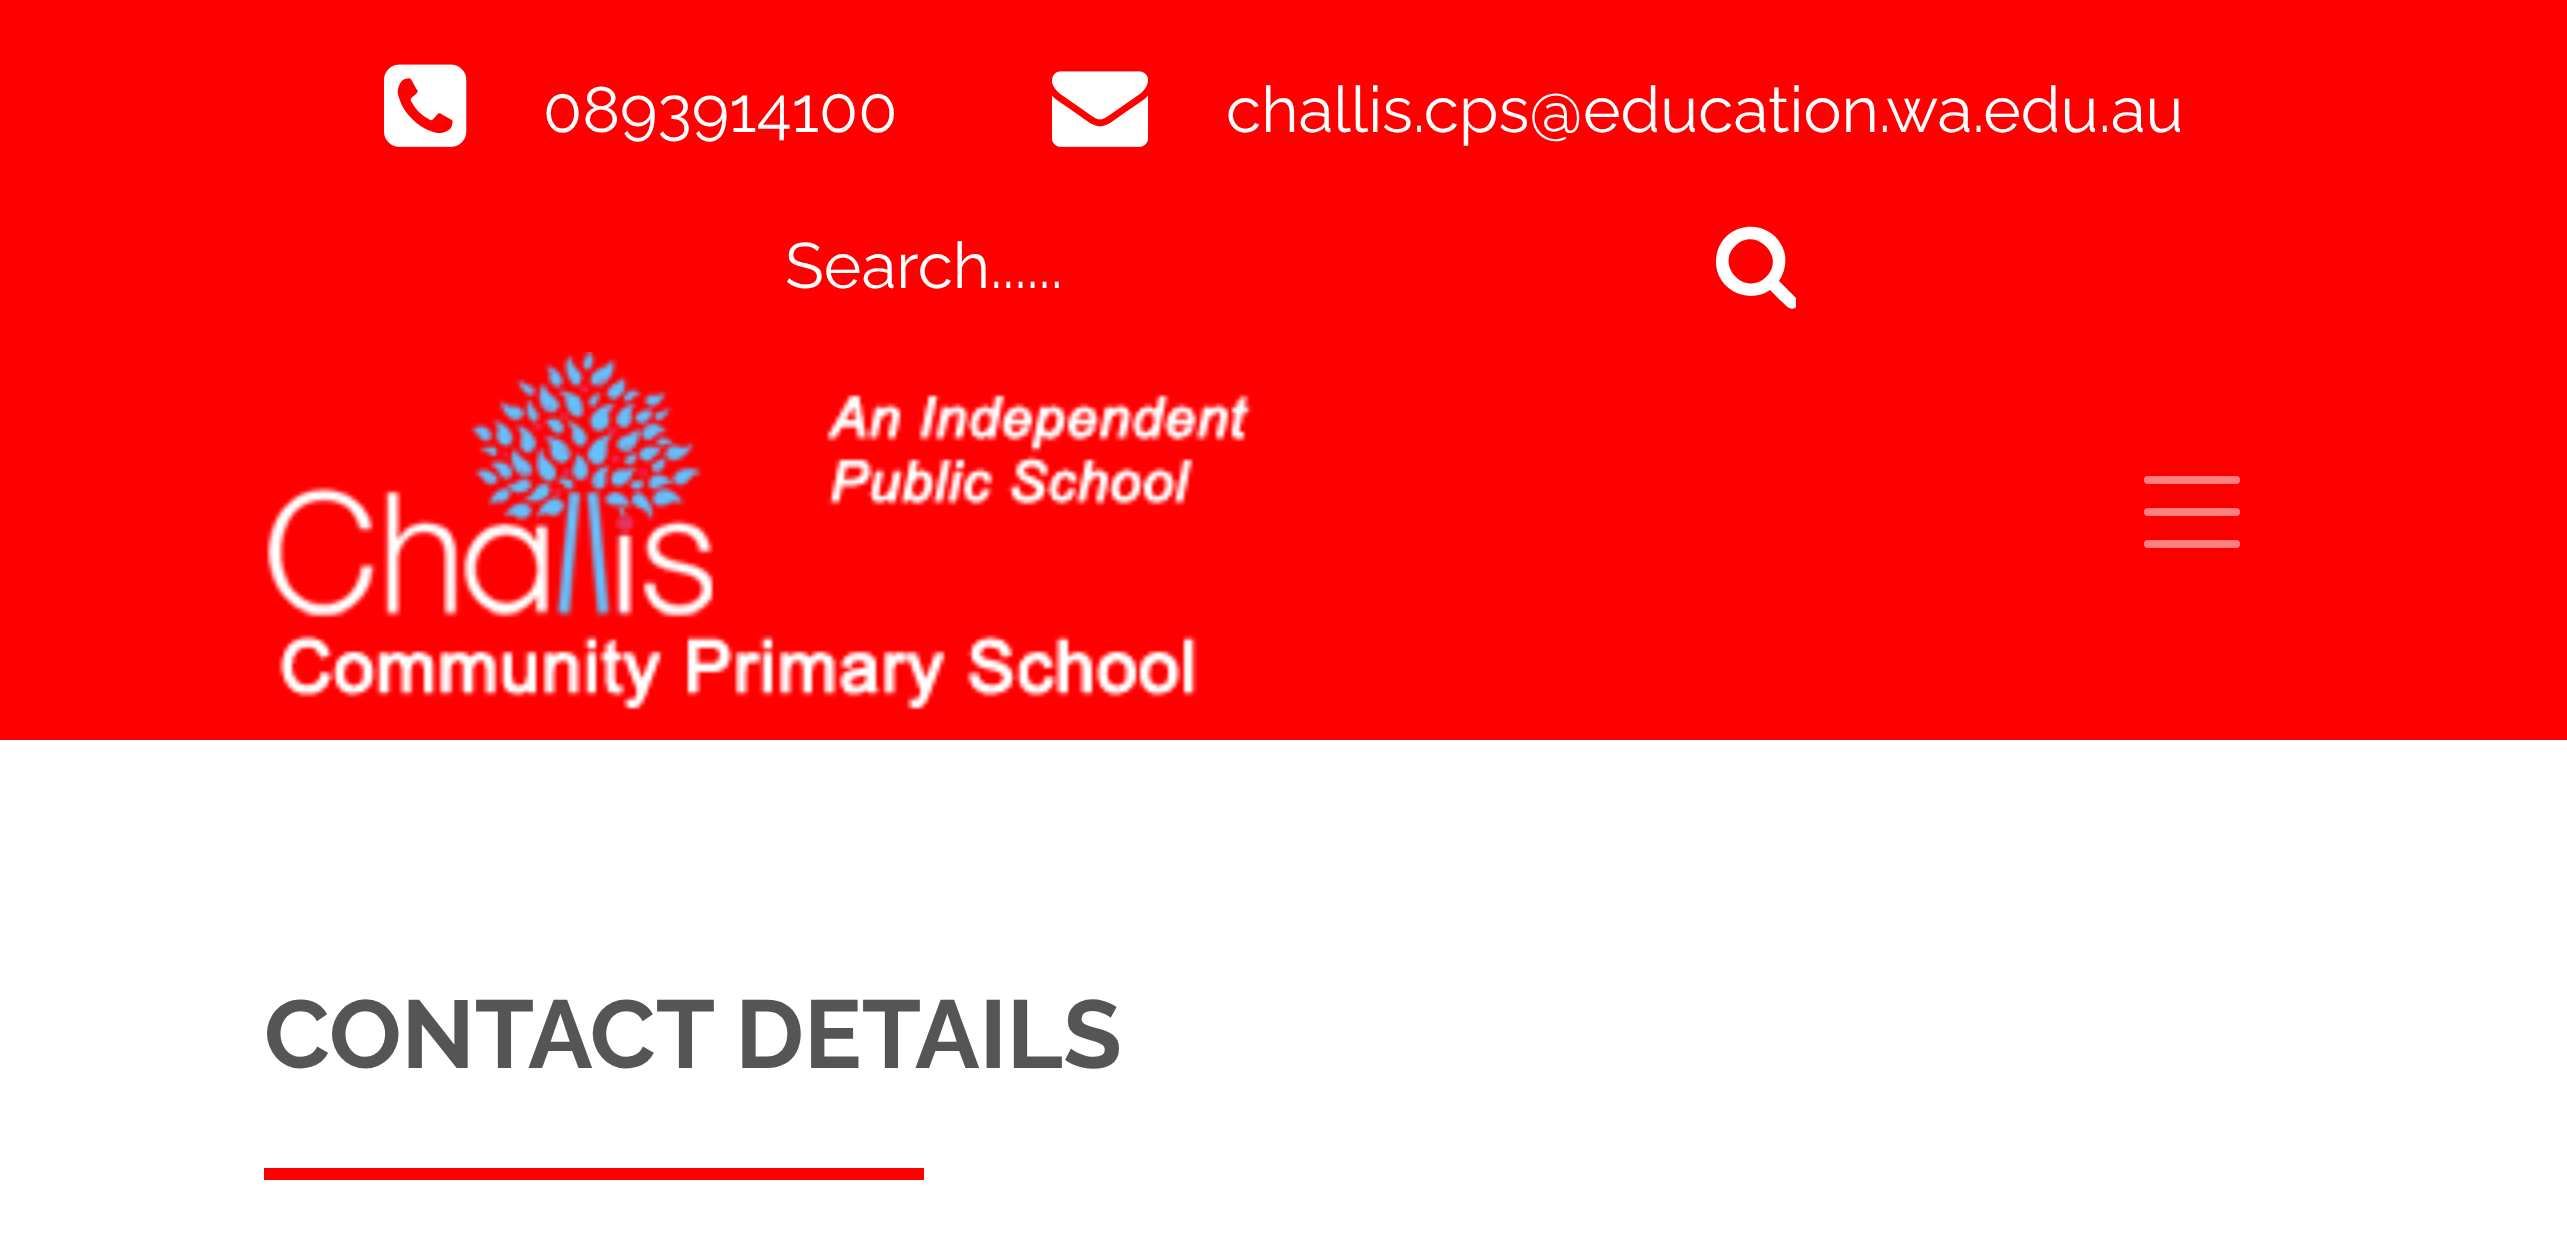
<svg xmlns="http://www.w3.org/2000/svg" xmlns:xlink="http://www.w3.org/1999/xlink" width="2567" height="1257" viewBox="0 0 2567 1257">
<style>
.cls-1{font:64px Raleway;fill:#ffffff}
.cls-2{font:bold 96px Raleway;fill:#555555}
</style>
<defs>
<clipPath id="clip1"><rect x="704" y="220" width="1092" height="96"/></clipPath>
</defs>
<rect width="100%" height="100%" fill="#ffffff"/>
<rect fill="#ff0000" x="0" y="0" width="2567" height="740"/>
<image xlink:href="image0.png" x="384" y="64" width="83" height="83"/>
<image xlink:href="image1.png" x="1052" y="71" width="96" height="76"/>
<g clip-path="url(#clip1)">
<path fill="#ffffff" d="M1766 277C1787 257 1755 225 1735 246C1715 266 1746 297 1766 277ZM1798 302C1798 304 1797 306 1795 308C1789 311 1785 304 1781 301L1770 290C1753 302 1728 295 1719 276C1716 269 1715 261 1717 253C1726 219 1773 218 1784 251C1787 261 1785 272 1779 281L1796 298C1797 299 1798 301 1798 302Z"/>
</g>
<image xlink:href="image2.png" x="266" y="352" width="987" height="358"/>
<path fill="none" stroke="#ff8080" stroke-width="8" stroke-linecap="round" d="M2148 480H2236M2148 512H2236M2148 544H2236"/>
<rect fill="#ff0000" x="264" y="1168" width="660" height="12"/>
<text class="cls-1" x="543" y="132">0893914100</text>
<text class="cls-1" x="1226" y="132">challis.cps@education.wa.edu.au</text>
<text class="cls-1" x="785" y="288">Search......</text>
<text class="cls-2" x="264" y="1068">CONTACT DETAILS</text>
</svg>
